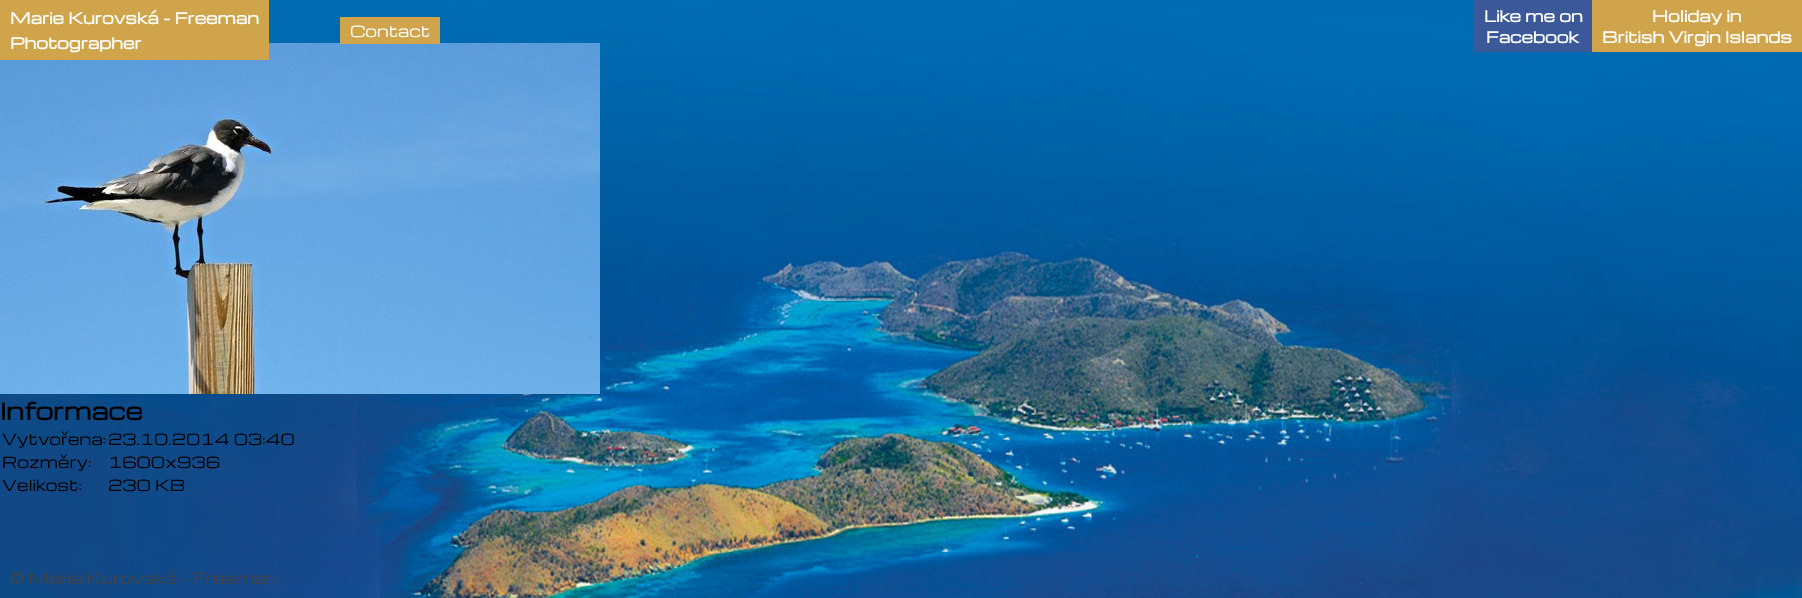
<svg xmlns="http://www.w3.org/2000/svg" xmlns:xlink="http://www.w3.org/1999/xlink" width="1802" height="598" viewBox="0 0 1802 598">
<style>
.cls-1{font:bold 15px Michroma;fill:#ffffff}
.cls-2{font:15px Michroma;fill:#ffffff}
.cls-3{font:bold 22.5px Michroma;fill:#000000}
.cls-4{font:15px Michroma;fill:#000000}
.cls-5{font:15px Michroma;fill:#444444}
</style>
<rect width="100%" height="100%" fill="#ffffff"/>
<image xlink:href="image0.png" x="0" y="0" width="1802" height="598"/>
<image xlink:href="image1.png" x="0" y="43" width="600" height="351"/>
<rect fill="#cfa44b" x="0" y="0" width="269" height="60"/>
<rect fill="#cfa44b" x="340" y="17" width="100" height="27"/>
<rect fill="#3b5998" x="1474" y="0" width="118" height="52"/>
<rect fill="#cfa44b" x="1592" y="0" width="210" height="52"/>
<text class="cls-1"><tspan x="10" y="24">Marie Kurovská - Freeman</tspan><tspan x="10" y="49">Photographer</tspan></text>
<text class="cls-2" x="350" y="37">Contact</text>
<text class="cls-1" x="1484" y="22">Like me on</text>
<text class="cls-1" x="1486" y="43">Facebook</text>
<text class="cls-1" x="1652" y="22">Holiday in</text>
<text class="cls-1" x="1602" y="43">British Virgin Islands</text>
<text class="cls-3" x="0" y="420">Informace</text>
<text class="cls-4" x="2" y="445">Vytvořena:</text>
<text class="cls-4" x="108" y="445">23.10.2014 03:40</text>
<text class="cls-4" x="2" y="468">Rozměry:</text>
<text class="cls-4" x="108" y="468">1600x936</text>
<text class="cls-4" x="2" y="491">Velikost:</text>
<text class="cls-4" x="108" y="491">230 KB</text>
<text class="cls-5" x="10" y="584">© Marie Kurovská - Freeman</text>
</svg>
